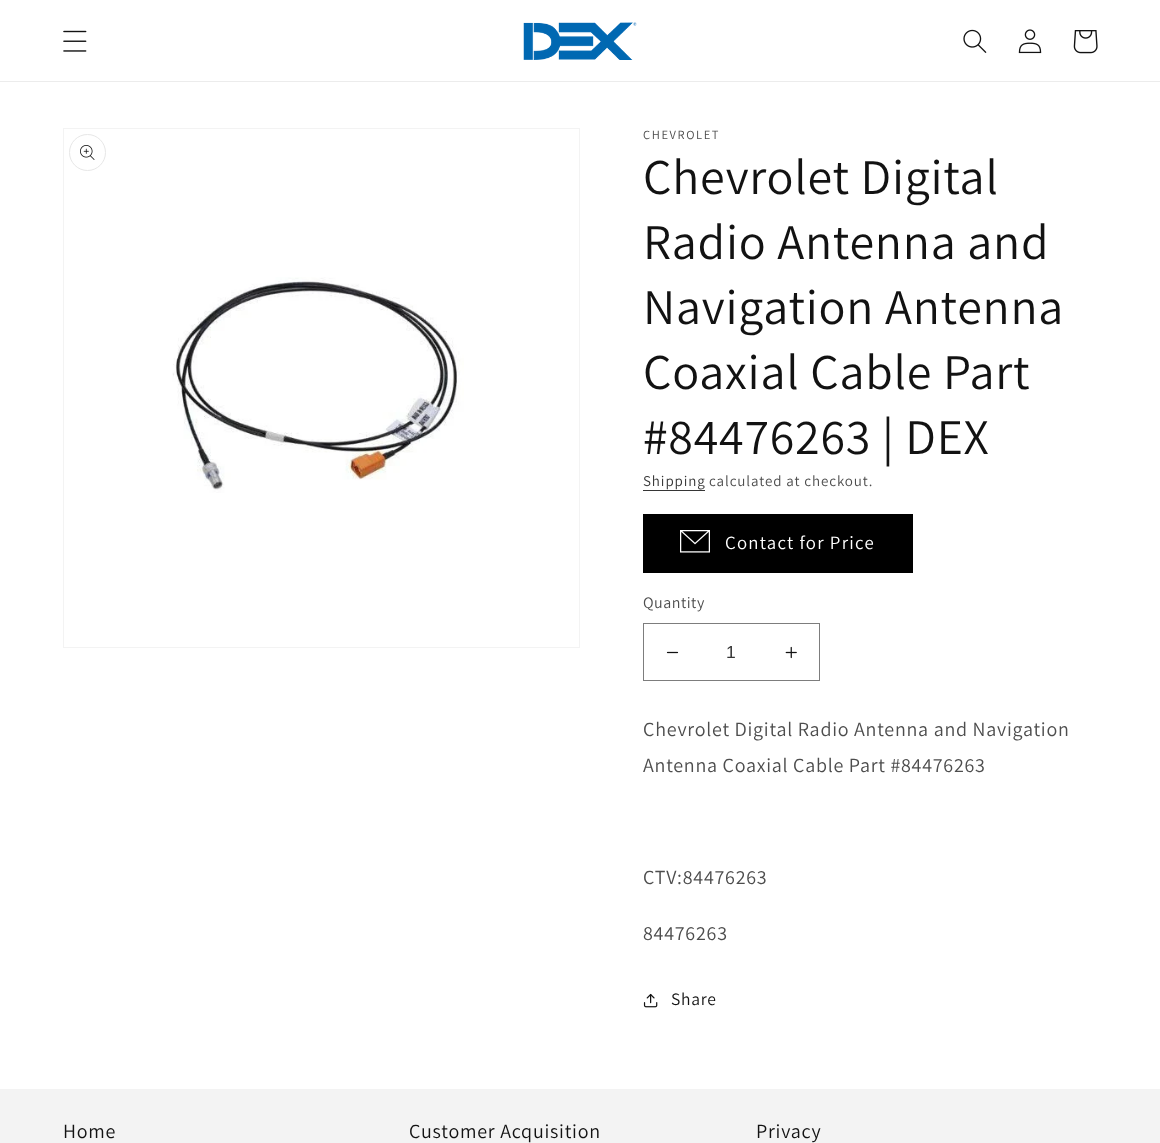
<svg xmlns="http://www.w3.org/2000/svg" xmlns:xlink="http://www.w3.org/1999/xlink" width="1160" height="1143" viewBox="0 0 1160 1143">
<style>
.cls-1{font:12.5px Assistant;letter-spacing:1.6px;fill:#4d4d4d}
.cls-2{font:50px Assistant;letter-spacing:0.75px;fill:#121212}
.cls-3{font:15px Assistant;letter-spacing:0.9px;fill:#363636}
.cls-4{font:15px Assistant;letter-spacing:0.9px;fill:#4d4d4d}
.cls-5{font:18.75px Assistant;letter-spacing:1.25px;fill:#ffffff}
.cls-6{font:16px Assistant;letter-spacing:0.5px;fill:#4d4d4d}
.cls-7{font:17.5px Liberation Sans;fill:#363636}
.cls-8{font:20px Assistant;letter-spacing:0.75px;fill:#4d4d4d}
.cls-9{font:17.5px Assistant;letter-spacing:0.75px;fill:#121212}
.cls-10{font:20px Assistant;letter-spacing:0.75px;fill:#121212}
</style>
<rect width="100%" height="100%" fill="#ffffff"/>
<rect fill="#ececec" x="0" y="81" width="1160" height="1"/>
<image xlink:href="image0.png" x="63" y="30" width="24" height="22"/>
<image xlink:href="image1.png" x="523" y="22" width="114" height="38"/>
<image xlink:href="image2.png" x="963" y="29" width="24" height="24"/>
<image xlink:href="image3.png" x="1018" y="29" width="24" height="25"/>
<image xlink:href="image4.png" x="1073" y="30" width="25" height="24"/>
<rect fill="none" stroke="#f3f3f3" x="63.5" y="128.5" width="516" height="519"/>
<image xlink:href="image5.png" x="172" y="277" width="292" height="216"/>
<circle fill="none" stroke="#e7e7e7" cx="87.5" cy="152.5" r="18"/>
<image xlink:href="image6.png" x="80" y="145" width="15" height="15"/>
<rect fill="#363636" x="643" y="490" width="62" height="1"/>
<rect fill="#000000" x="643" y="514" width="270" height="59"/>
<image xlink:href="image7.png" x="680" y="530" width="30" height="23"/>
<image xlink:href="image8.png" x="666" y="651" width="13" height="3"/>
<image xlink:href="image9.png" x="785" y="646" width="12" height="13"/>
<rect fill="none" stroke="#7d7d7d" x="643.5" y="623.5" width="176" height="57"/>
<image xlink:href="image10.png" x="643" y="993" width="15" height="15"/>
<rect fill="#f3f3f3" x="0" y="1089" width="1160" height="54"/>
<text class="cls-1" x="643" y="139">CHEVROLET</text>
<text class="cls-2"><tspan x="643" y="194">Chevrolet Digital</tspan><tspan x="643" y="259">Radio Antenna and</tspan><tspan x="643" y="324">Navigation Antenna</tspan><tspan x="643" y="389">Coaxial Cable Part</tspan><tspan x="643" y="454">#84476263 | DEX</tspan></text>
<text class="cls-3" x="643" y="486">Shipping</text>
<text class="cls-4" x="709" y="486">calculated at checkout.</text>
<text class="cls-5" x="725" y="549">Contact for Price</text>
<text class="cls-6" x="643" y="608">Quantity</text>
<text class="cls-7" x="726" y="658">1</text>
<text class="cls-8"><tspan x="643" y="736">Chevrolet Digital Radio Antenna and Navigation</tspan><tspan x="643" y="772">Antenna Coaxial Cable Part #84476263</tspan></text>
<text class="cls-8" x="643" y="884">CTV:84476263</text>
<text class="cls-8" x="643" y="940">84476263</text>
<text class="cls-9" x="671" y="1005">Share</text>
<text class="cls-10" x="63" y="1138">Home</text>
<text class="cls-10" x="409" y="1138">Customer Acquisition</text>
<text class="cls-10" x="756" y="1138">Privacy</text>
</svg>
